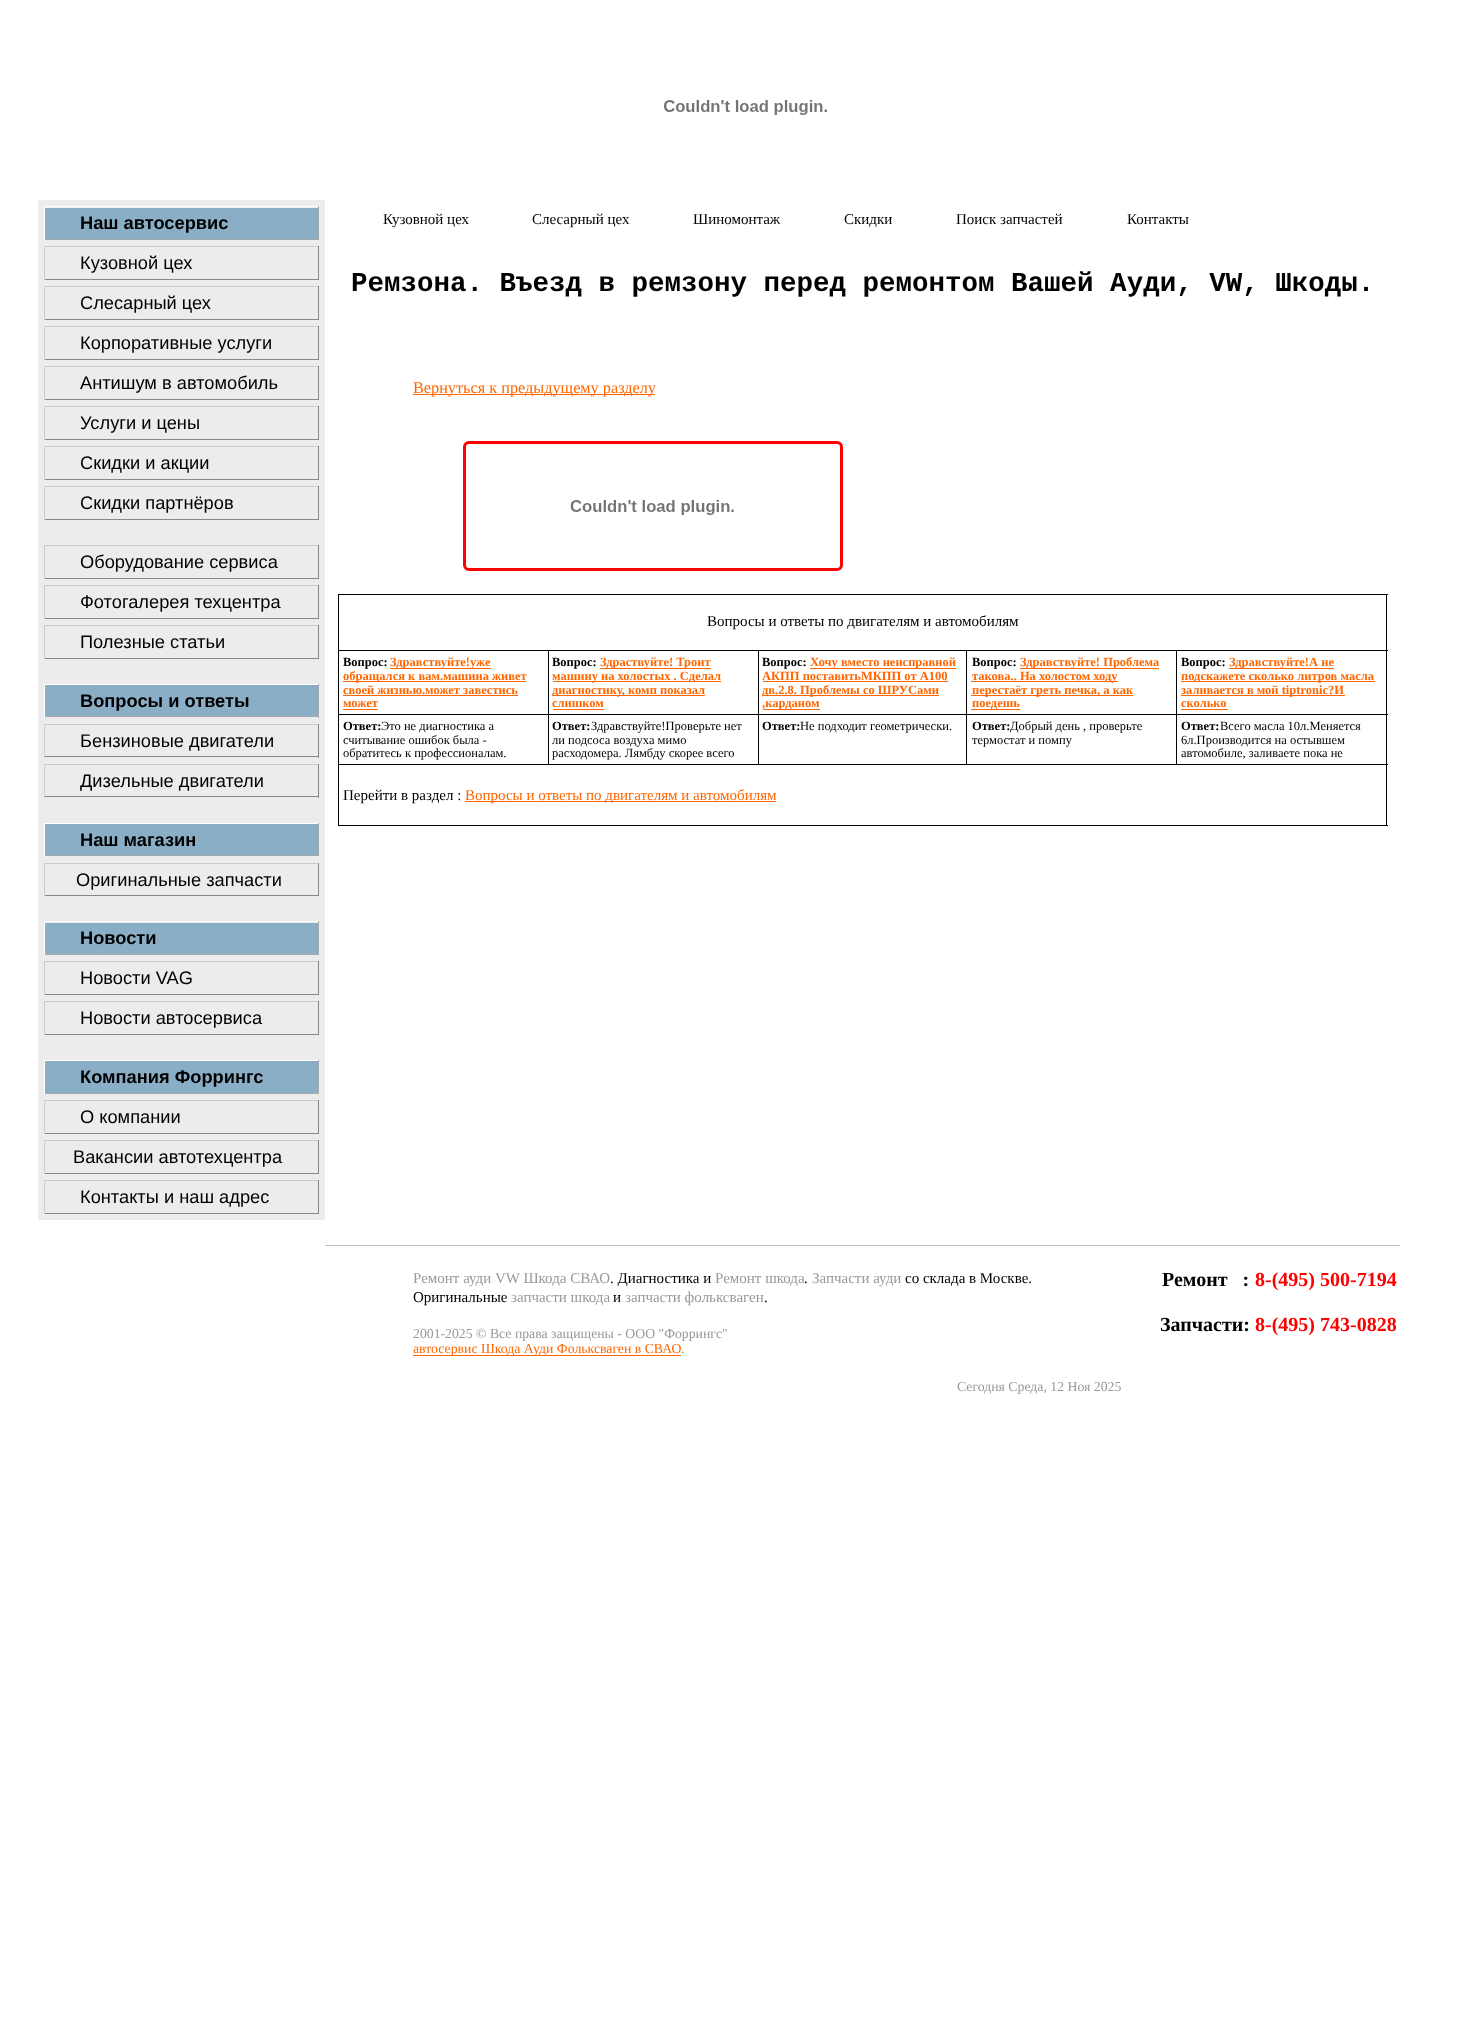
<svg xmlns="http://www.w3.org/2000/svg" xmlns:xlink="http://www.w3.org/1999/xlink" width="1457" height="2042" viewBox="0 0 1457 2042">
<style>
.cls-1{font:bold 18.25px Liberation Sans;fill:#000000}
.cls-2{font:18.25px Liberation Sans;fill:#000000}
.cls-3{font:15px Liberation Serif;fill:#000000}
.cls-4{font:bold 27.5px Liberation Mono;fill:#000000}
.cls-5{font:16.25px Liberation Serif;fill:#ff6600}
.cls-6{font:bold 12.5px Liberation Serif;fill:#000000}
.cls-7{font:bold 12.5px Liberation Serif;fill:#ff6600}
.cls-8{font:12.5px Liberation Serif;fill:#000000}
.cls-9{font:15px Liberation Serif;fill:#ff6600}
.cls-10{font:15px Liberation Serif;fill:#999999}
.cls-11{font:13.75px Liberation Serif;fill:#999999}
.cls-12{font:13.75px Liberation Serif;fill:#ff6600}
.cls-13{font:bold 20px Liberation Serif;fill:#000000}
.cls-14{font:bold 20px Liberation Serif;fill:#ff0000}
</style>
<rect width="100%" height="100%" fill="#ffffff"/>
<image xlink:href="image0.png" x="664" y="100" width="163" height="15"/>
<rect fill="#ececec" x="38" y="200" width="287" height="1020"/>
<rect fill="#ffffff" x="44" y="206" width="275" height="1"/>
<rect fill="#aaaaaa" x="318" y="206" width="1" height="34"/>
<rect fill="#aaaaaa" x="44" y="239" width="275" height="1"/>
<rect fill="#ffffff" x="44" y="206" width="1" height="34"/>
<rect fill="#8aaec6" x="45" y="208" width="273" height="31"/>
<rect fill="#cccccc" x="44" y="246" width="275" height="1"/>
<rect fill="#888888" x="318" y="246" width="1" height="34"/>
<rect fill="#888888" x="44" y="279" width="275" height="1"/>
<rect fill="#cccccc" x="44" y="246" width="1" height="34"/>
<rect fill="#cccccc" x="44" y="286" width="275" height="1"/>
<rect fill="#888888" x="318" y="286" width="1" height="34"/>
<rect fill="#888888" x="44" y="319" width="275" height="1"/>
<rect fill="#cccccc" x="44" y="286" width="1" height="34"/>
<rect fill="#cccccc" x="44" y="326" width="275" height="1"/>
<rect fill="#888888" x="318" y="326" width="1" height="34"/>
<rect fill="#888888" x="44" y="359" width="275" height="1"/>
<rect fill="#cccccc" x="44" y="326" width="1" height="34"/>
<rect fill="#cccccc" x="44" y="366" width="275" height="1"/>
<rect fill="#888888" x="318" y="366" width="1" height="34"/>
<rect fill="#888888" x="44" y="399" width="275" height="1"/>
<rect fill="#cccccc" x="44" y="366" width="1" height="34"/>
<rect fill="#cccccc" x="44" y="406" width="275" height="1"/>
<rect fill="#888888" x="318" y="406" width="1" height="34"/>
<rect fill="#888888" x="44" y="439" width="275" height="1"/>
<rect fill="#cccccc" x="44" y="406" width="1" height="34"/>
<rect fill="#cccccc" x="44" y="446" width="275" height="1"/>
<rect fill="#888888" x="318" y="446" width="1" height="34"/>
<rect fill="#888888" x="44" y="479" width="275" height="1"/>
<rect fill="#cccccc" x="44" y="446" width="1" height="34"/>
<rect fill="#cccccc" x="44" y="486" width="275" height="1"/>
<rect fill="#888888" x="318" y="486" width="1" height="34"/>
<rect fill="#888888" x="44" y="519" width="275" height="1"/>
<rect fill="#cccccc" x="44" y="486" width="1" height="34"/>
<rect fill="#cccccc" x="44" y="545" width="275" height="1"/>
<rect fill="#888888" x="318" y="545" width="1" height="34"/>
<rect fill="#888888" x="44" y="578" width="275" height="1"/>
<rect fill="#cccccc" x="44" y="545" width="1" height="34"/>
<rect fill="#cccccc" x="44" y="585" width="275" height="1"/>
<rect fill="#888888" x="318" y="585" width="1" height="34"/>
<rect fill="#888888" x="44" y="618" width="275" height="1"/>
<rect fill="#cccccc" x="44" y="585" width="1" height="34"/>
<rect fill="#cccccc" x="44" y="625" width="275" height="1"/>
<rect fill="#888888" x="318" y="625" width="1" height="34"/>
<rect fill="#888888" x="44" y="658" width="275" height="1"/>
<rect fill="#cccccc" x="44" y="625" width="1" height="34"/>
<rect fill="#ffffff" x="44" y="684" width="275" height="1"/>
<rect fill="#aaaaaa" x="318" y="684" width="1" height="34"/>
<rect fill="#aaaaaa" x="44" y="716" width="275" height="1"/>
<rect fill="#ffffff" x="44" y="684" width="1" height="34"/>
<rect fill="#8aaec6" x="45" y="685" width="273" height="31"/>
<rect fill="#cccccc" x="44" y="724" width="275" height="1"/>
<rect fill="#888888" x="318" y="724" width="1" height="34"/>
<rect fill="#888888" x="44" y="756" width="275" height="1"/>
<rect fill="#cccccc" x="44" y="724" width="1" height="34"/>
<rect fill="#cccccc" x="44" y="764" width="275" height="1"/>
<rect fill="#888888" x="318" y="764" width="1" height="34"/>
<rect fill="#888888" x="44" y="796" width="275" height="1"/>
<rect fill="#cccccc" x="44" y="764" width="1" height="34"/>
<rect fill="#ffffff" x="44" y="823" width="275" height="1"/>
<rect fill="#aaaaaa" x="318" y="823" width="1" height="33"/>
<rect fill="#aaaaaa" x="44" y="855" width="275" height="1"/>
<rect fill="#ffffff" x="44" y="823" width="1" height="33"/>
<rect fill="#8aaec6" x="45" y="824" width="273" height="31"/>
<rect fill="#cccccc" x="44" y="863" width="275" height="1"/>
<rect fill="#888888" x="318" y="863" width="1" height="33"/>
<rect fill="#888888" x="44" y="895" width="275" height="1"/>
<rect fill="#cccccc" x="44" y="863" width="1" height="33"/>
<rect fill="#ffffff" x="44" y="921" width="275" height="1"/>
<rect fill="#aaaaaa" x="318" y="921" width="1" height="34"/>
<rect fill="#aaaaaa" x="44" y="954" width="275" height="1"/>
<rect fill="#ffffff" x="44" y="921" width="1" height="34"/>
<rect fill="#8aaec6" x="45" y="923" width="273" height="31"/>
<rect fill="#cccccc" x="44" y="961" width="275" height="1"/>
<rect fill="#888888" x="318" y="961" width="1" height="34"/>
<rect fill="#888888" x="44" y="994" width="275" height="1"/>
<rect fill="#cccccc" x="44" y="961" width="1" height="34"/>
<rect fill="#cccccc" x="44" y="1001" width="275" height="1"/>
<rect fill="#888888" x="318" y="1001" width="1" height="34"/>
<rect fill="#888888" x="44" y="1034" width="275" height="1"/>
<rect fill="#cccccc" x="44" y="1001" width="1" height="34"/>
<rect fill="#ffffff" x="44" y="1060" width="275" height="1"/>
<rect fill="#aaaaaa" x="318" y="1060" width="1" height="34"/>
<rect fill="#aaaaaa" x="44" y="1093" width="275" height="1"/>
<rect fill="#ffffff" x="44" y="1060" width="1" height="34"/>
<rect fill="#8aaec6" x="45" y="1061" width="273" height="32"/>
<rect fill="#cccccc" x="44" y="1100" width="275" height="1"/>
<rect fill="#888888" x="318" y="1100" width="1" height="34"/>
<rect fill="#888888" x="44" y="1133" width="275" height="1"/>
<rect fill="#cccccc" x="44" y="1100" width="1" height="34"/>
<rect fill="#cccccc" x="44" y="1140" width="275" height="1"/>
<rect fill="#888888" x="318" y="1140" width="1" height="34"/>
<rect fill="#888888" x="44" y="1173" width="275" height="1"/>
<rect fill="#cccccc" x="44" y="1140" width="1" height="34"/>
<rect fill="#cccccc" x="44" y="1180" width="275" height="1"/>
<rect fill="#888888" x="318" y="1180" width="1" height="34"/>
<rect fill="#888888" x="44" y="1213" width="275" height="1"/>
<rect fill="#cccccc" x="44" y="1180" width="1" height="34"/>
<rect fill="#ff6600" x="413" y="394" width="242" height="1"/>
<rect fill="none" stroke="#ff0000" stroke-width="3" x="464.5" y="442.5" width="377" height="127" rx="4.5"/>
<image xlink:href="image1.png" x="570" y="500" width="164" height="15"/>
<rect fill="#000000" x="338" y="594" width="1050" height="1"/>
<rect fill="#000000" x="1386" y="594" width="1" height="232"/>
<rect fill="#000000" x="338" y="825" width="1050" height="1"/>
<rect fill="#000000" x="338" y="594" width="1" height="232"/>
<rect fill="#000000" x="1176" y="650" width="212" height="1"/>
<rect fill="#000000" x="1176" y="714" width="212" height="1"/>
<rect fill="#000000" x="338" y="764" width="1050" height="1"/>
<rect fill="#000000" x="1176" y="714" width="1" height="51"/>
<rect fill="#000000" x="966" y="714" width="212" height="1"/>
<rect fill="#000000" x="1176" y="650" width="1" height="65"/>
<rect fill="#000000" x="966" y="650" width="212" height="1"/>
<rect fill="#000000" x="966" y="714" width="1" height="51"/>
<rect fill="#000000" x="758" y="714" width="210" height="1"/>
<rect fill="#000000" x="966" y="650" width="1" height="65"/>
<rect fill="#000000" x="758" y="650" width="210" height="1"/>
<rect fill="#000000" x="758" y="714" width="1" height="51"/>
<rect fill="#000000" x="548" y="714" width="211" height="1"/>
<rect fill="#000000" x="758" y="650" width="1" height="65"/>
<rect fill="#000000" x="548" y="650" width="211" height="1"/>
<rect fill="#000000" x="548" y="714" width="1" height="51"/>
<rect fill="#000000" x="338" y="714" width="211" height="1"/>
<rect fill="#000000" x="548" y="650" width="1" height="65"/>
<rect fill="#000000" x="338" y="650" width="211" height="1"/>
<rect fill="#ff6600" x="390" y="668" width="101" height="1"/>
<rect fill="#ff6600" x="343" y="681" width="183" height="1"/>
<rect fill="#ff6600" x="343" y="695" width="175" height="1"/>
<rect fill="#ff6600" x="343" y="709" width="35" height="1"/>
<rect fill="#ff6600" x="600" y="668" width="111" height="1"/>
<rect fill="#ff6600" x="553" y="681" width="168" height="1"/>
<rect fill="#ff6600" x="553" y="695" width="152" height="1"/>
<rect fill="#ff6600" x="553" y="709" width="51" height="1"/>
<rect fill="#ff6600" x="810" y="668" width="146" height="1"/>
<rect fill="#ff6600" x="763" y="681" width="185" height="1"/>
<rect fill="#ff6600" x="763" y="695" width="176" height="1"/>
<rect fill="#ff6600" x="763" y="709" width="57" height="1"/>
<rect fill="#ff6600" x="1020" y="668" width="139" height="1"/>
<rect fill="#ff6600" x="971" y="681" width="147" height="1"/>
<rect fill="#ff6600" x="971" y="695" width="162" height="1"/>
<rect fill="#ff6600" x="971" y="709" width="49" height="1"/>
<rect fill="#ff6600" x="1229" y="668" width="105" height="1"/>
<rect fill="#ff6600" x="1181" y="681" width="194" height="1"/>
<rect fill="#ff6600" x="1181" y="695" width="164" height="1"/>
<rect fill="#ff6600" x="1181" y="709" width="47" height="1"/>
<rect fill="#ff6600" x="465" y="801" width="311" height="1"/>
<rect fill="#bfbfbf" x="325" y="1245" width="1075" height="1"/>
<rect fill="#ff6600" x="413" y="1355" width="268" height="1"/>
<text class="cls-1" x="80" y="229">Наш автосервис</text>
<text class="cls-2" x="80" y="269">Кузовной цех</text>
<text class="cls-2" x="80" y="309">Слесарный цех</text>
<text class="cls-2" x="80" y="349">Корпоративные услуги</text>
<text class="cls-2" x="80" y="389">Антишум в автомобиль</text>
<text class="cls-2" x="80" y="429">Услуги и цены</text>
<text class="cls-2" x="80" y="469">Скидки и акции</text>
<text class="cls-2" x="80" y="509">Скидки партнёров</text>
<text class="cls-2" x="80" y="568">Оборудование сервиса</text>
<text class="cls-2" x="80" y="608">Фотогалерея техцентра</text>
<text class="cls-2" x="80" y="648">Полезные статьи</text>
<text class="cls-1" x="80" y="707">Вопросы и ответы</text>
<text class="cls-2" x="80" y="747">Бензиновые двигатели</text>
<text class="cls-2" x="80" y="787">Дизельные двигатели</text>
<text class="cls-1" x="80" y="846">Наш магазин</text>
<text class="cls-2" x="76" y="886">Оригинальные запчасти</text>
<text class="cls-1" x="80" y="944">Новости</text>
<text class="cls-2" x="80" y="984">Новости VAG</text>
<text class="cls-2" x="80" y="1024">Новости автосервиса</text>
<text class="cls-1" x="80" y="1083">Компания Форрингс</text>
<text class="cls-2" x="80" y="1123">О компании</text>
<text class="cls-2" x="73" y="1163">Вакансии автотехцентра</text>
<text class="cls-2" x="80" y="1203">Контакты и наш адрес</text>
<text class="cls-3" x="383" y="224">Кузовной цех</text>
<text class="cls-3" x="532" y="224">Слесарный цех</text>
<text class="cls-3" x="693" y="224">Шиномонтаж</text>
<text class="cls-3" x="844" y="224">Скидки</text>
<text class="cls-3" x="956" y="224">Поиск запчастей</text>
<text class="cls-3" x="1127" y="224">Контакты</text>
<text class="cls-4" x="351" y="291">Ремзона. Въезд в ремзону перед ремонтом Вашей Ауди, VW, Шкоды.</text>
<text class="cls-5" x="413" y="393">Вернуться к предыдущему разделу</text>
<text class="cls-3" x="707" y="626">Вопросы и ответы по двигателям и автомобилям</text>
<text class="cls-6" x="343" y="666">Вопрос:</text>
<text class="cls-7" x="390" y="666">Здравствуйте!уже</text>
<text class="cls-7"><tspan x="343" y="680">обращался к вам.машина живет</tspan><tspan x="343" y="694">своей жизнью.может завестись</tspan><tspan x="343" y="707">может</tspan></text>
<text class="cls-6" x="552" y="666">Вопрос:</text>
<text class="cls-7" x="600" y="666">Здраствуйте! Троит</text>
<text class="cls-7"><tspan x="552" y="680">машину на холостых . Сделал</tspan><tspan x="552" y="694">диагностику, комп показал</tspan><tspan x="552" y="707">слишком</tspan></text>
<text class="cls-6" x="762" y="666">Вопрос:</text>
<text class="cls-7" x="810" y="666">Хочу вместо неисправной</text>
<text class="cls-7"><tspan x="762" y="680">АКПП поставитьМКПП от А100</tspan><tspan x="762" y="694">дв.2.8. Проблемы со ШРУСами</tspan><tspan x="762" y="707">,карданом</tspan></text>
<text class="cls-6" x="972" y="666">Вопрос:</text>
<text class="cls-7" x="1020" y="666">Здравствуйте! Проблема</text>
<text class="cls-7"><tspan x="972" y="680">такова.. На холостом ходу</tspan><tspan x="972" y="694">перестаёт греть печка, а как</tspan><tspan x="972" y="707">поедешь</tspan></text>
<text class="cls-6" x="1181" y="666">Вопрос:</text>
<text class="cls-7" x="1229" y="666">Здравствуйте!А не</text>
<text class="cls-7"><tspan x="1181" y="680">подскажете сколько литров масла</tspan><tspan x="1181" y="694">заливается в мой tiptronic?И</tspan><tspan x="1181" y="707">сколько</tspan></text>
<text class="cls-6" x="343" y="730">Ответ:</text>
<text class="cls-8" x="381" y="730">Это не диагностика а</text>
<text class="cls-8"><tspan x="343" y="744">считывание ошибок была -</tspan><tspan x="343" y="757">обратитесь к профессионалам.</tspan></text>
<text class="cls-6" x="552" y="730">Ответ:</text>
<text class="cls-8" x="591" y="730">Здравствуйте!Проверьте нет</text>
<text class="cls-8"><tspan x="552" y="744">ли подсоса воздуха мимо</tspan><tspan x="552" y="757">расходомера. Лямбду скорее всего</tspan></text>
<text class="cls-6" x="762" y="730">Ответ:</text>
<text class="cls-8" x="800" y="730">Не подходит геометрически.</text>
<text class="cls-6" x="972" y="730">Ответ:</text>
<text class="cls-8" x="1010" y="730">Добрый день , проверьте</text>
<text class="cls-8" x="972" y="744">термостат и помпу</text>
<text class="cls-6" x="1181" y="730">Ответ:</text>
<text class="cls-8" x="1220" y="730">Всего масла 10л.Меняется</text>
<text class="cls-8"><tspan x="1181" y="744">6л.Производится на остывшем</tspan><tspan x="1181" y="757">автомобиле, заливаете пока не</tspan></text>
<text class="cls-3" x="343" y="800">Перейти в раздел :</text>
<text class="cls-9" x="465" y="800">Вопросы и ответы по двигателям и автомобилям</text>
<text class="cls-10" x="413" y="1283">Ремонт ауди VW Шкода СВАО</text>
<text class="cls-3" x="610" y="1283">. Диагностика и</text>
<text class="cls-10" x="715" y="1283">Ремонт шкода</text>
<text class="cls-3" x="804" y="1283">.</text>
<text class="cls-10" x="812" y="1283">Запчасти ауди</text>
<text class="cls-3" x="905" y="1283">со склада в Москве.</text>
<text class="cls-3" x="413" y="1302">Оригинальные</text>
<text class="cls-10" x="511" y="1302">запчасти шкода</text>
<text class="cls-3" x="613" y="1302">и</text>
<text class="cls-10" x="625" y="1302">запчасти фольксваген</text>
<text class="cls-3" x="764" y="1302">.</text>
<text class="cls-11" x="413" y="1338">2001-2025 © Все права защищены - ООО "Форрингс"</text>
<text class="cls-12" x="413" y="1353">автосервис Шкода Ауди Фольксваген в СВАО</text>
<text class="cls-11" x="681" y="1353">.</text>
<text class="cls-13" xml:space="preserve" x="1162" y="1286">Ремонт   :</text>
<text class="cls-14" x="1255" y="1286">8-(495) 500-7194</text>
<text class="cls-13" x="1160" y="1331">Запчасти:</text>
<text class="cls-14" x="1255" y="1331">8-(495) 743-0828</text>
<text class="cls-11" x="957" y="1391">Сегодня Среда, 12 Ноя 2025</text>
</svg>
